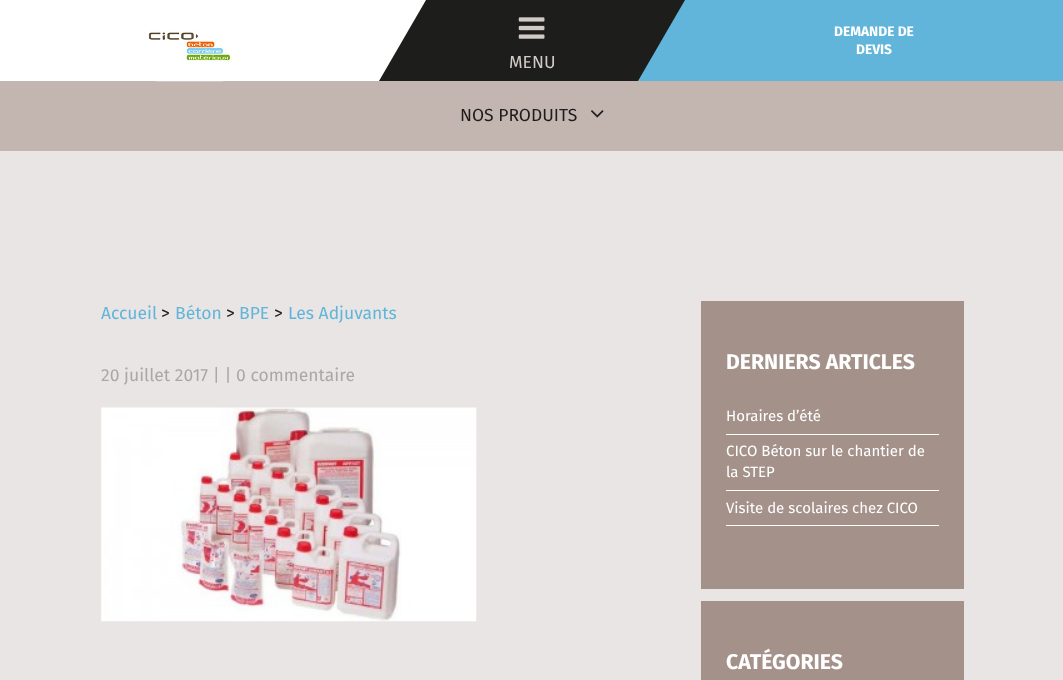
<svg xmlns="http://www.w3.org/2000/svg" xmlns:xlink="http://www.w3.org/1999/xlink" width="1063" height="680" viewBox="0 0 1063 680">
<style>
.cls-1{font:bold 13.75px Fira Sans;fill:#ffffff}
.cls-2{font:17.5px Fira Sans;fill:#d2cac6}
.cls-3{font:17.5px Fira Sans;fill:#1d1d1b}
.cls-4{font:17.5px Fira Sans;fill:#61b5da}
.cls-5{font:17.5px Fira Sans;fill:#a8a8a8}
.cls-6{font:bold 21.25px Fira Sans;fill:#ffffff}
.cls-7{font:15px Fira Sans;fill:#ffffff}
</style>
<rect width="100%" height="100%" fill="#e9e5e4"/>
<rect fill="#1d1d1b" x="379" y="0" width="306" height="81"/>
<path fill="#ffffff" d="M0 0H426L379 81H-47Z"/>
<rect fill="#c3b5b0" x="0" y="81" width="1063" height="70"/>
<image xlink:href="image0.png" x="148" y="30" width="82" height="52"/>
<path fill="#61b5da" d="M685 0H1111L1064 81H638Z"/>
<image xlink:href="image1.png" x="518" y="17" width="27" height="22"/>
<image xlink:href="image2.png" x="591" y="110" width="13" height="8"/>
<image xlink:href="image3.png" x="101" y="407" width="376" height="215"/>
<rect fill="#a4918a" x="701" y="301" width="263" height="288"/>
<rect fill="#ffffff" x="726" y="434" width="213" height="1"/>
<rect fill="#ffffff" x="726" y="490" width="213" height="1"/>
<rect fill="#ffffff" x="726" y="525" width="213" height="1"/>
<rect fill="#a4918a" x="701" y="601" width="263" height="79"/>
<text class="cls-1" x="834" y="36">DEMANDE DE</text>
<text class="cls-1" x="856" y="54">DEVIS</text>
<text class="cls-2" x="509" y="68">MENU</text>
<text class="cls-3" x="460" y="121">NOS PRODUITS</text>
<text class="cls-4" x="101" y="319">Accueil</text>
<text class="cls-3" x="161" y="319">&gt;</text>
<text class="cls-4" x="175" y="319">Béton</text>
<text class="cls-3" x="226" y="319">&gt;</text>
<text class="cls-4" x="239" y="319">BPE</text>
<text class="cls-3" x="274" y="319">&gt;</text>
<text class="cls-4" x="288" y="319">Les Adjuvants</text>
<text class="cls-5" x="101" y="381">20 juillet 2017 | | 0 commentaire</text>
<text class="cls-6" x="726" y="369">DERNIERS ARTICLES</text>
<text class="cls-7" x="726" y="421">Horaires d’été</text>
<text class="cls-7"><tspan x="726" y="456">CICO Béton sur le chantier de</tspan><tspan x="726" y="477">la STEP</tspan></text>
<text class="cls-7" x="726" y="513">Visite de scolaires chez CICO</text>
<text class="cls-6" x="726" y="669">CATÉGORIES</text>
</svg>
